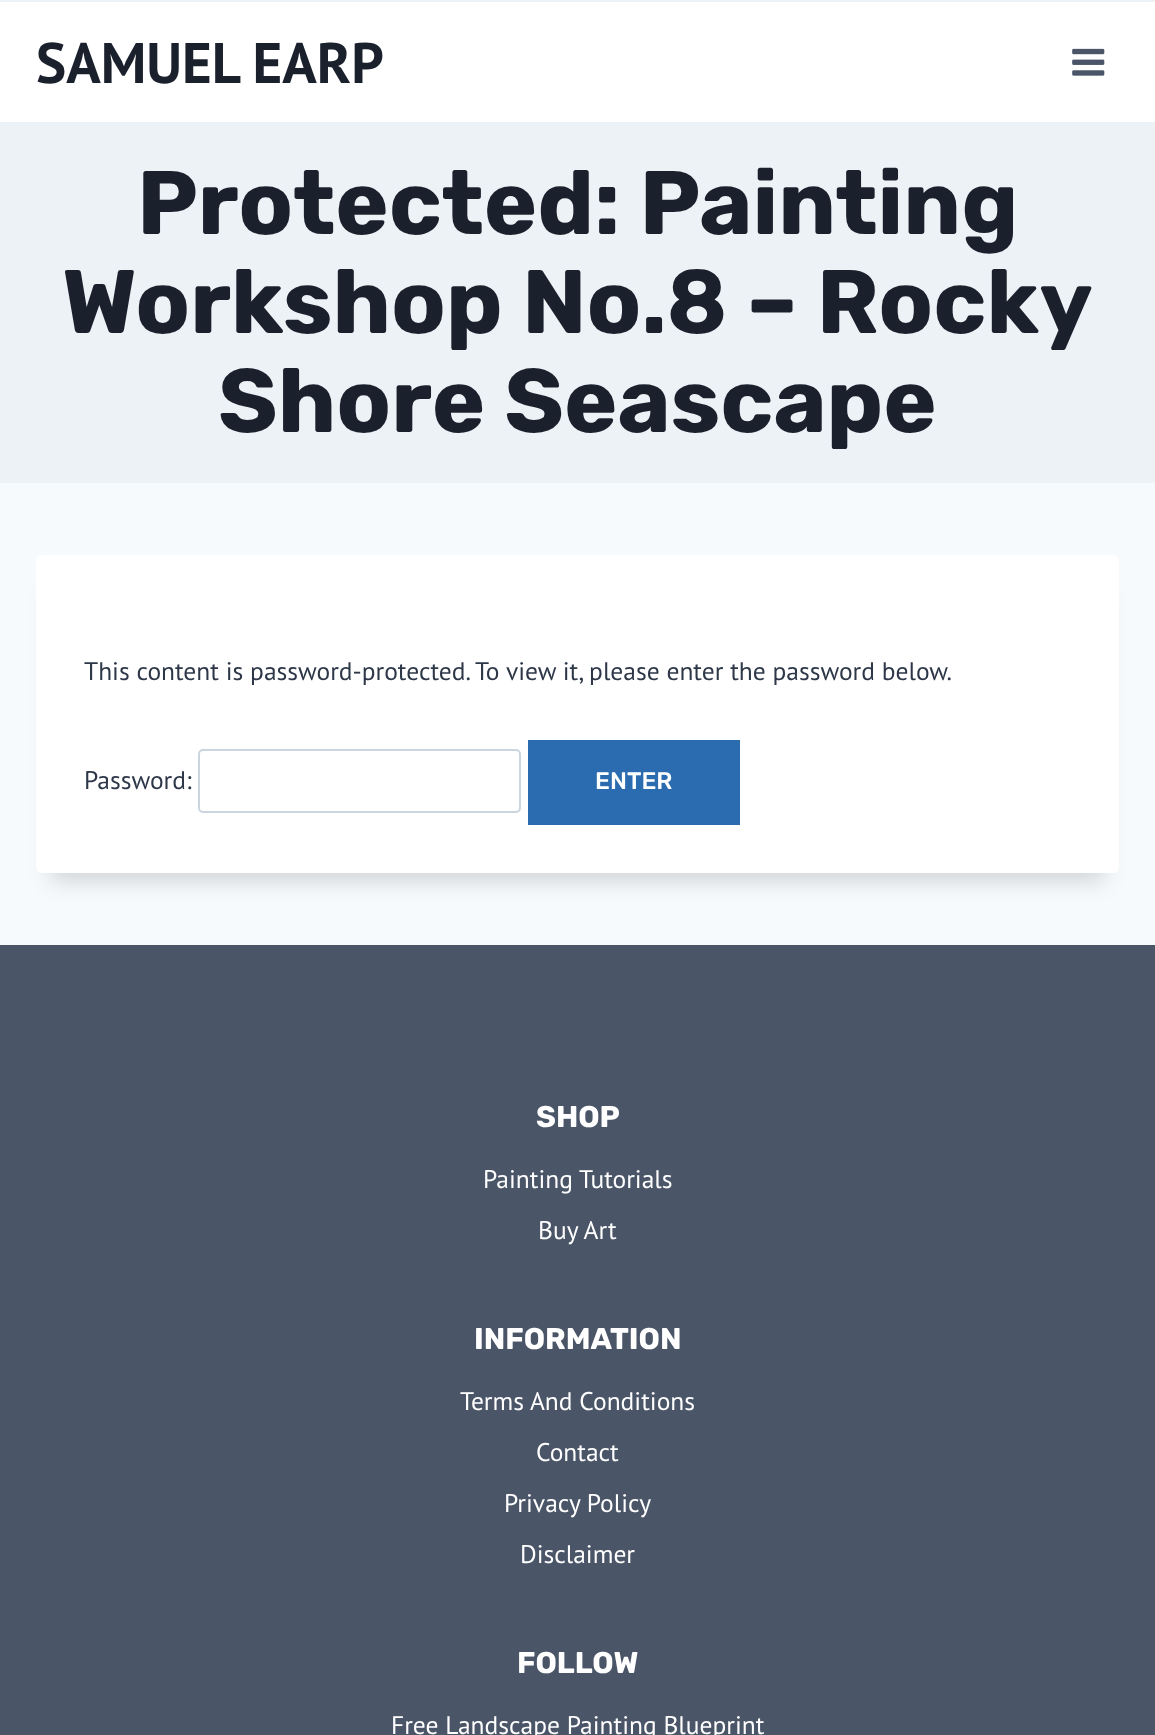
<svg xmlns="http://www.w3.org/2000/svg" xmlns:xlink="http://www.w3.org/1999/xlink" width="1155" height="1735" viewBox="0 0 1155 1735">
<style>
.cls-1{font:bold 57px PT Sans;fill:#1a202c}
.cls-2{font:bold 90px Rubik;fill:#1a202c}
.cls-3{font:25.5px PT Sans;fill:#2d3748}
.cls-4{font:500 24px Rubik;fill:#ffffff}
.cls-5{font:bold 30px Rubik;fill:#ffffff}
.cls-6{font:25.5px PT Sans;fill:#ffffff}
</style>
<rect width="100%" height="100%" fill="#f7fafc"/>
<rect fill="#ffffff" x="0" y="2" width="1155" height="120"/>
<rect fill="#edf2f7" x="0" y="0" width="1155" height="2"/>
<image xlink:href="image0.png" x="1072" y="48" width="33" height="28"/>
<rect fill="#edf2f7" x="0" y="122" width="1155" height="361"/>
<rect fill="#000000" fill-opacity="0.15" filter="blur(11px)" x="51" y="593" width="1053" height="288"/>
<rect fill="#ffffff" x="36" y="555" width="1083" height="318" rx="6"/>
<rect fill="none" stroke="#cbd5e0" stroke-width="2" x="199" y="750" width="321" height="62" rx="4"/>
<rect fill="#2b6cb0" x="528" y="740" width="212" height="85"/>
<rect fill="#4a5568" x="0" y="945" width="1155" height="790"/>
<text class="cls-1" x="36" y="83">SAMUEL EARP</text>
<text class="cls-2" x="137" y="234">Protected: Painting</text>
<text class="cls-2" x="62" y="333">Workshop No.8 – Rocky</text>
<text class="cls-2" x="218" y="432">Shore Seascape</text>
<text class="cls-3" x="84" y="680">This content is password-protected. To view it, please enter the password below.</text>
<text class="cls-3" x="84" y="789">Password:</text>
<text class="cls-4" x="595" y="789">ENTER</text>
<text class="cls-5" x="536" y="1127">SHOP</text>
<text class="cls-6" x="483" y="1188">Painting Tutorials</text>
<text class="cls-6" x="538" y="1239">Buy Art</text>
<text class="cls-5" x="474" y="1349">INFORMATION</text>
<text class="cls-6" x="460" y="1410">Terms And Conditions</text>
<text class="cls-6" x="536" y="1461">Contact</text>
<text class="cls-6" x="504" y="1512">Privacy Policy</text>
<text class="cls-6" x="520" y="1563">Disclaimer</text>
<text class="cls-5" x="517" y="1673">FOLLOW</text>
<text class="cls-6" x="391" y="1734">Free Landscape Painting Blueprint</text>
</svg>
